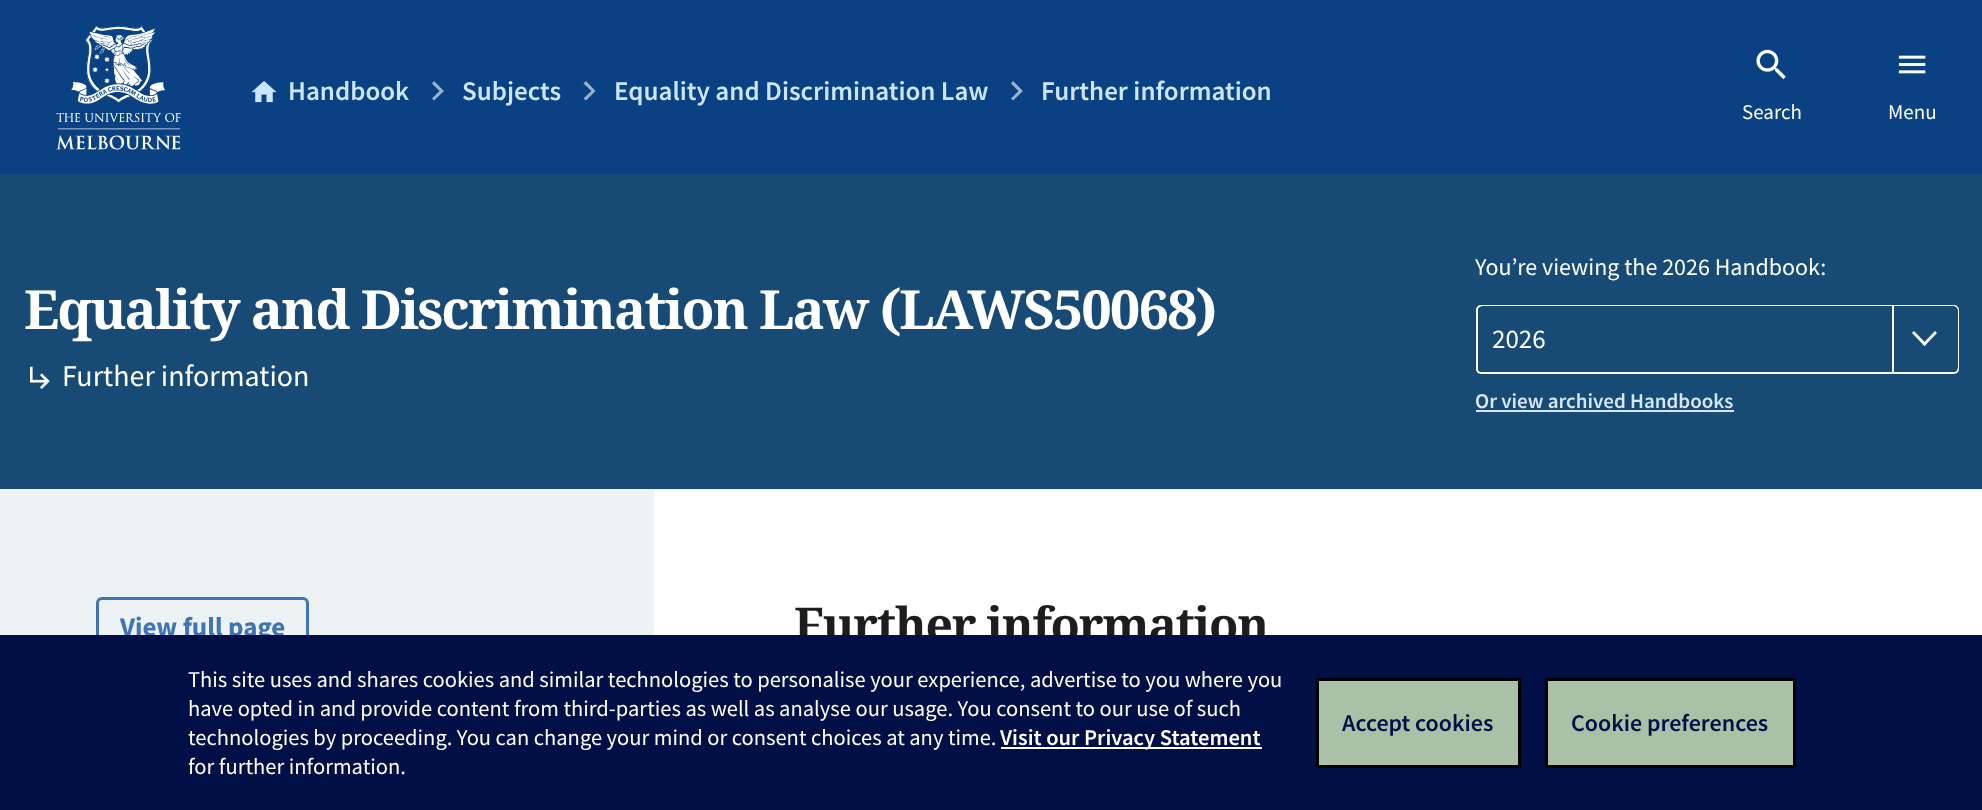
<svg xmlns="http://www.w3.org/2000/svg" xmlns:xlink="http://www.w3.org/1999/xlink" width="1982" height="810" viewBox="0 0 1982 810">
<style>
.cls-1{font:600 27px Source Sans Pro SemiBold;fill:#cde6ff}
.cls-2{font:21px Source Sans Pro;fill:#ffffff}
.cls-3{font:bold 54px Noto Serif;letter-spacing:-1.9px;fill:#ffffff}
.cls-4{font:30px Source Sans Pro;fill:#ffffff}
.cls-5{font:24px Source Sans Pro;fill:#ffffff}
.cls-6{font:27px Source Sans Pro;fill:#ffffff}
.cls-7{font:600 21px Source Sans Pro SemiBold;fill:#d6e7fb}
.cls-8{font:bold 27px Source Sans Pro;fill:#4074b2}
.cls-9{font:bold 48px Noto Serif;letter-spacing:-1.4px;fill:#1d1d1d}
.cls-10{font:22.5px Source Sans Pro;fill:#ffffff}
.cls-11{font:600 22.5px Source Sans Pro SemiBold;fill:#ffffff}
.cls-12{font:600 24px Source Sans Pro SemiBold;fill:#000f46}
</style>
<rect width="100%" height="100%" fill="#ffffff"/>
<rect fill="#094183" x="0" y="0" width="1982" height="174"/>
<image xlink:href="image0.png" x="56" y="25" width="125" height="125"/>
<image xlink:href="image1.png" x="251" y="81" width="26" height="22"/>
<path fill="#9db3cd" d="M434 81L444 91H439.5L432 83.5ZM444 91L434 100.5L432 98.5L439.5 91Z"/>
<path fill="#9db3cd" d="M586 81L595.5 91H591.5L583.5 83.5ZM595.5 91L586 100.5L583.5 98.5L591.5 91Z"/>
<path fill="#9db3cd" d="M1013 81L1023 91H1018.5L1011 83.5ZM1023 91L1013 100.5L1011 98.5L1018.5 91Z"/>
<image xlink:href="image2.png" x="1756" y="49" width="30" height="31"/>
<image xlink:href="image3.png" x="1898" y="55" width="28" height="19"/>
<rect fill="#174b76" x="0" y="174" width="1982" height="315"/>
<image xlink:href="image4.png" x="30" y="366" width="20" height="23"/>
<rect fill="none" stroke="#ffffff" stroke-width="2" x="1477" y="306" width="481" height="67" rx="4"/>
<rect fill="#174b76" x="1478" y="306" width="480" height="66" rx="5"/>
<rect fill="#ffffff" x="1892" y="306" width="2" height="66"/>
<path fill="#ffffff" d="M1935 331L1937 333L1924.5 346L1922.5 344Z"/>
<path fill="#ffffff" d="M1914 331L1926.5 344L1924.5 346L1912 333Z"/>
<rect fill="#d6e7fb" x="1476" y="410" width="258" height="2"/>
<rect fill="#edf2f5" x="654" y="489" width="1328" height="1"/>
<rect fill="#edf2f5" x="0" y="489" width="654" height="146"/>
<rect fill="none" stroke="#4074b2" stroke-width="3" x="97.5" y="598.5" width="210" height="56" rx="4.5"/>
<text class="cls-1" x="288" y="100">Handbook</text>
<text class="cls-1" x="462" y="100">Subjects</text>
<text class="cls-1" x="614" y="100">Equality and Discrimination Law</text>
<text class="cls-1" x="1041" y="100">Further information</text>
<text class="cls-2" x="1742" y="119">Search</text>
<text class="cls-2" x="1888" y="119">Menu</text>
<text class="cls-3" x="24" y="329">Equality and Discrimination Law (LAWS50068)</text>
<text class="cls-4" x="62" y="386">Further information</text>
<text class="cls-5" x="1475" y="275">You’re viewing the 2026 Handbook:</text>
<text class="cls-6" x="1492" y="348">2026</text>
<text class="cls-7" x="1475" y="408">Or view archived Handbooks</text>
<text class="cls-8" x="120" y="636">View full page</text>
<text class="cls-9" x="794" y="642">Further information</text>
<rect fill="#000f46" x="0" y="635" width="1982" height="175"/>
<text class="cls-10"><tspan x="188" y="687">This site uses and shares cookies and similar technologies to personalise your experience, advertise to you where you</tspan><tspan x="188" y="716">have opted in and provide content from third-parties as well as analyse our usage. You consent to our use of such</tspan><tspan x="188" y="745">technologies by proceeding. You can change your mind or consent choices at any time.</tspan></text>
<rect fill="#ffffff" x="1001" y="747" width="261" height="2"/>
<text class="cls-11" x="1000" y="745">Visit our Privacy Statement</text>
<text class="cls-10" x="188" y="774">for further information.</text>
<rect fill="#abc1a7" stroke="#000000" stroke-width="3" x="1317.5" y="679.5" width="202" height="87"/>
<text class="cls-12" x="1342" y="731">Accept cookies</text>
<rect fill="#abc1a7" stroke="#000000" stroke-width="3" x="1546.5" y="679.5" width="248" height="87"/>
<text class="cls-12" x="1571" y="731">Cookie preferences</text>
</svg>
